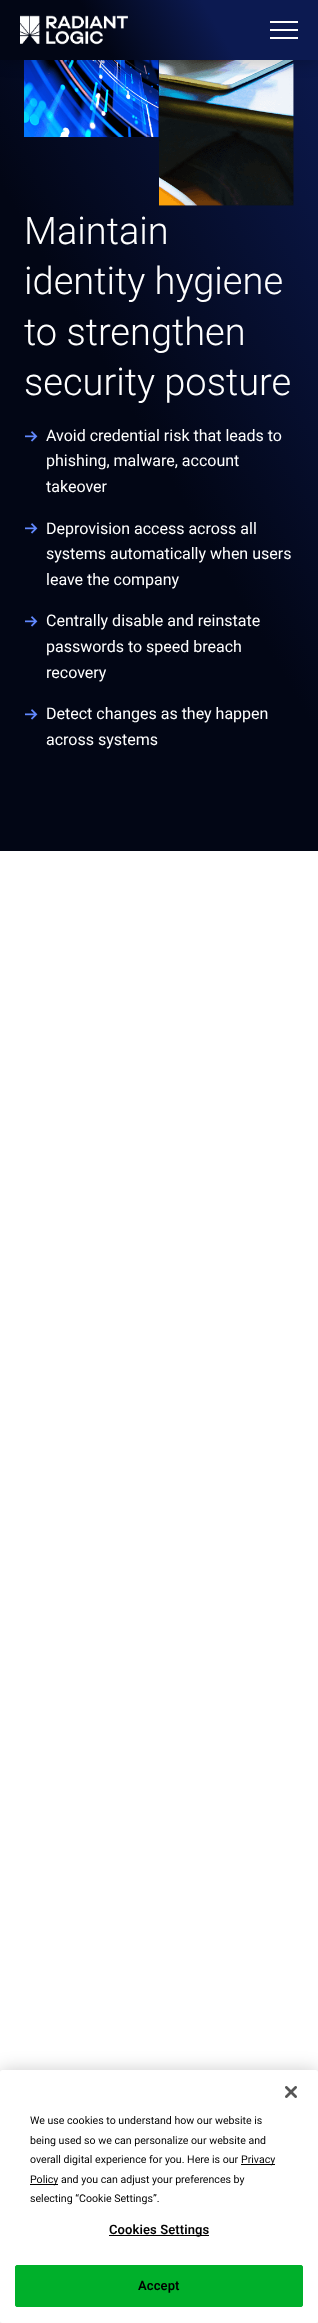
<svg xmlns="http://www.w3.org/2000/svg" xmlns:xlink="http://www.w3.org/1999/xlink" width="318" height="2323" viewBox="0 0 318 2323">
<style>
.cls-1{font:300 38px Roboto;fill:#ffffff}
.cls-2{font:16px Roboto;fill:#ffffff}
.cls-3{font:10.6px Roboto;fill:#000000}
.cls-4{font:600 13px Roboto;letter-spacing:0.1px;fill:#000000}
</style>
<defs>
<linearGradient id="g1" gradientUnits="userSpaceOnUse" x1="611" y1="-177" x2="-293" y2="344"><stop offset="0.33" stop-color="#0c1a51"/><stop offset="0.68" stop-color="#020615"/></linearGradient>
<linearGradient id="g2" gradientUnits="userSpaceOnUse" x1="291" y1="-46" x2="27" y2="106"><stop offset="0.33" stop-color="#0c1a51"/><stop offset="0.68" stop-color="#020615"/></linearGradient>
</defs>
<rect width="100%" height="100%" fill="#ffffff"/>
<path fill="url(#g1)" d="M0-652V851H318V-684H150V-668H35V-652Z"/>
<image xlink:href="image1.png" x="24" y="60" width="270" height="146"/>
<rect fill="#000000" fill-opacity="0.16" filter="blur(6px)" x="0" y="6" width="318" height="60"/>
<rect fill="url(#g2)" x="0" y="0" width="318" height="60"/>
<image xlink:href="image0.png" x="20" y="15" width="108" height="30"/>
<rect fill="#ffffff" x="270" y="29" width="28" height="2"/>
<rect fill="#ffffff" x="270" y="21" width="28" height="2"/>
<rect fill="#ffffff" x="270" y="37" width="28" height="2"/>
<image xlink:href="image2.png" x="25" y="431" width="13" height="11"/>
<image xlink:href="image2.png" x="25" y="523" width="13" height="11"/>
<image xlink:href="image2.png" x="25" y="616" width="13" height="11"/>
<image xlink:href="image2.png" x="25" y="709" width="13" height="11"/>
<rect fill="#000000" fill-opacity="0.2" filter="blur(9px)" x="0" y="2070" width="318" height="253" rx="2.5"/>
<rect fill="#ffffff" x="0" y="2070" width="318" height="253" rx="2.5"/>
<image xlink:href="image3.png" x="285" y="2086" width="12" height="12"/>
<rect fill="#000000" x="241" y="2164" width="34" height="1"/>
<rect fill="#000000" x="30" y="2184" width="28" height="1"/>
<rect fill="#000000" x="109" y="2235" width="100" height="1"/>
<rect fill="#00b02b" stroke="#00b02b" x="15.5" y="2265.5" width="287" height="41" rx="1.5"/>
<text class="cls-1"><tspan x="24" y="244">Maintain</tspan><tspan x="24" y="294">identity hygiene</tspan><tspan x="24" y="345">to strengthen</tspan><tspan x="24" y="395">security posture</tspan></text>
<text class="cls-2"><tspan x="46" y="441">Avoid credential risk that leads to</tspan><tspan x="46" y="466">phishing, malware, account</tspan><tspan x="46" y="492">takeover</tspan></text>
<text class="cls-2"><tspan x="46" y="534">Deprovision access across all</tspan><tspan x="46" y="559">systems automatically when users</tspan><tspan x="46" y="585">leave the company</tspan></text>
<text class="cls-2"><tspan x="46" y="626">Centrally disable and reinstate</tspan><tspan x="46" y="652">passwords to speed breach</tspan><tspan x="46" y="678">recovery</tspan></text>
<text class="cls-2"><tspan x="46" y="719">Detect changes as they happen</tspan><tspan x="46" y="745">across systems</tspan></text>
<text class="cls-3"><tspan x="30" y="2124">We use cookies to understand how our website is</tspan><tspan x="30" y="2144">being used so we can personalize our website and</tspan><tspan x="30" y="2163">overall digital experience for you. Here is our</tspan></text>
<text class="cls-3" x="241" y="2163">Privacy</text>
<text class="cls-3"><tspan x="30" y="2183">Policy and you can adjust your preferences by</tspan><tspan x="30" y="2202">selecting “Cookie Settings”.</tspan></text>
<text class="cls-4" x="109" y="2234">Cookies Settings</text>
<text class="cls-4" x="138" y="2290">Accept</text>
</svg>
